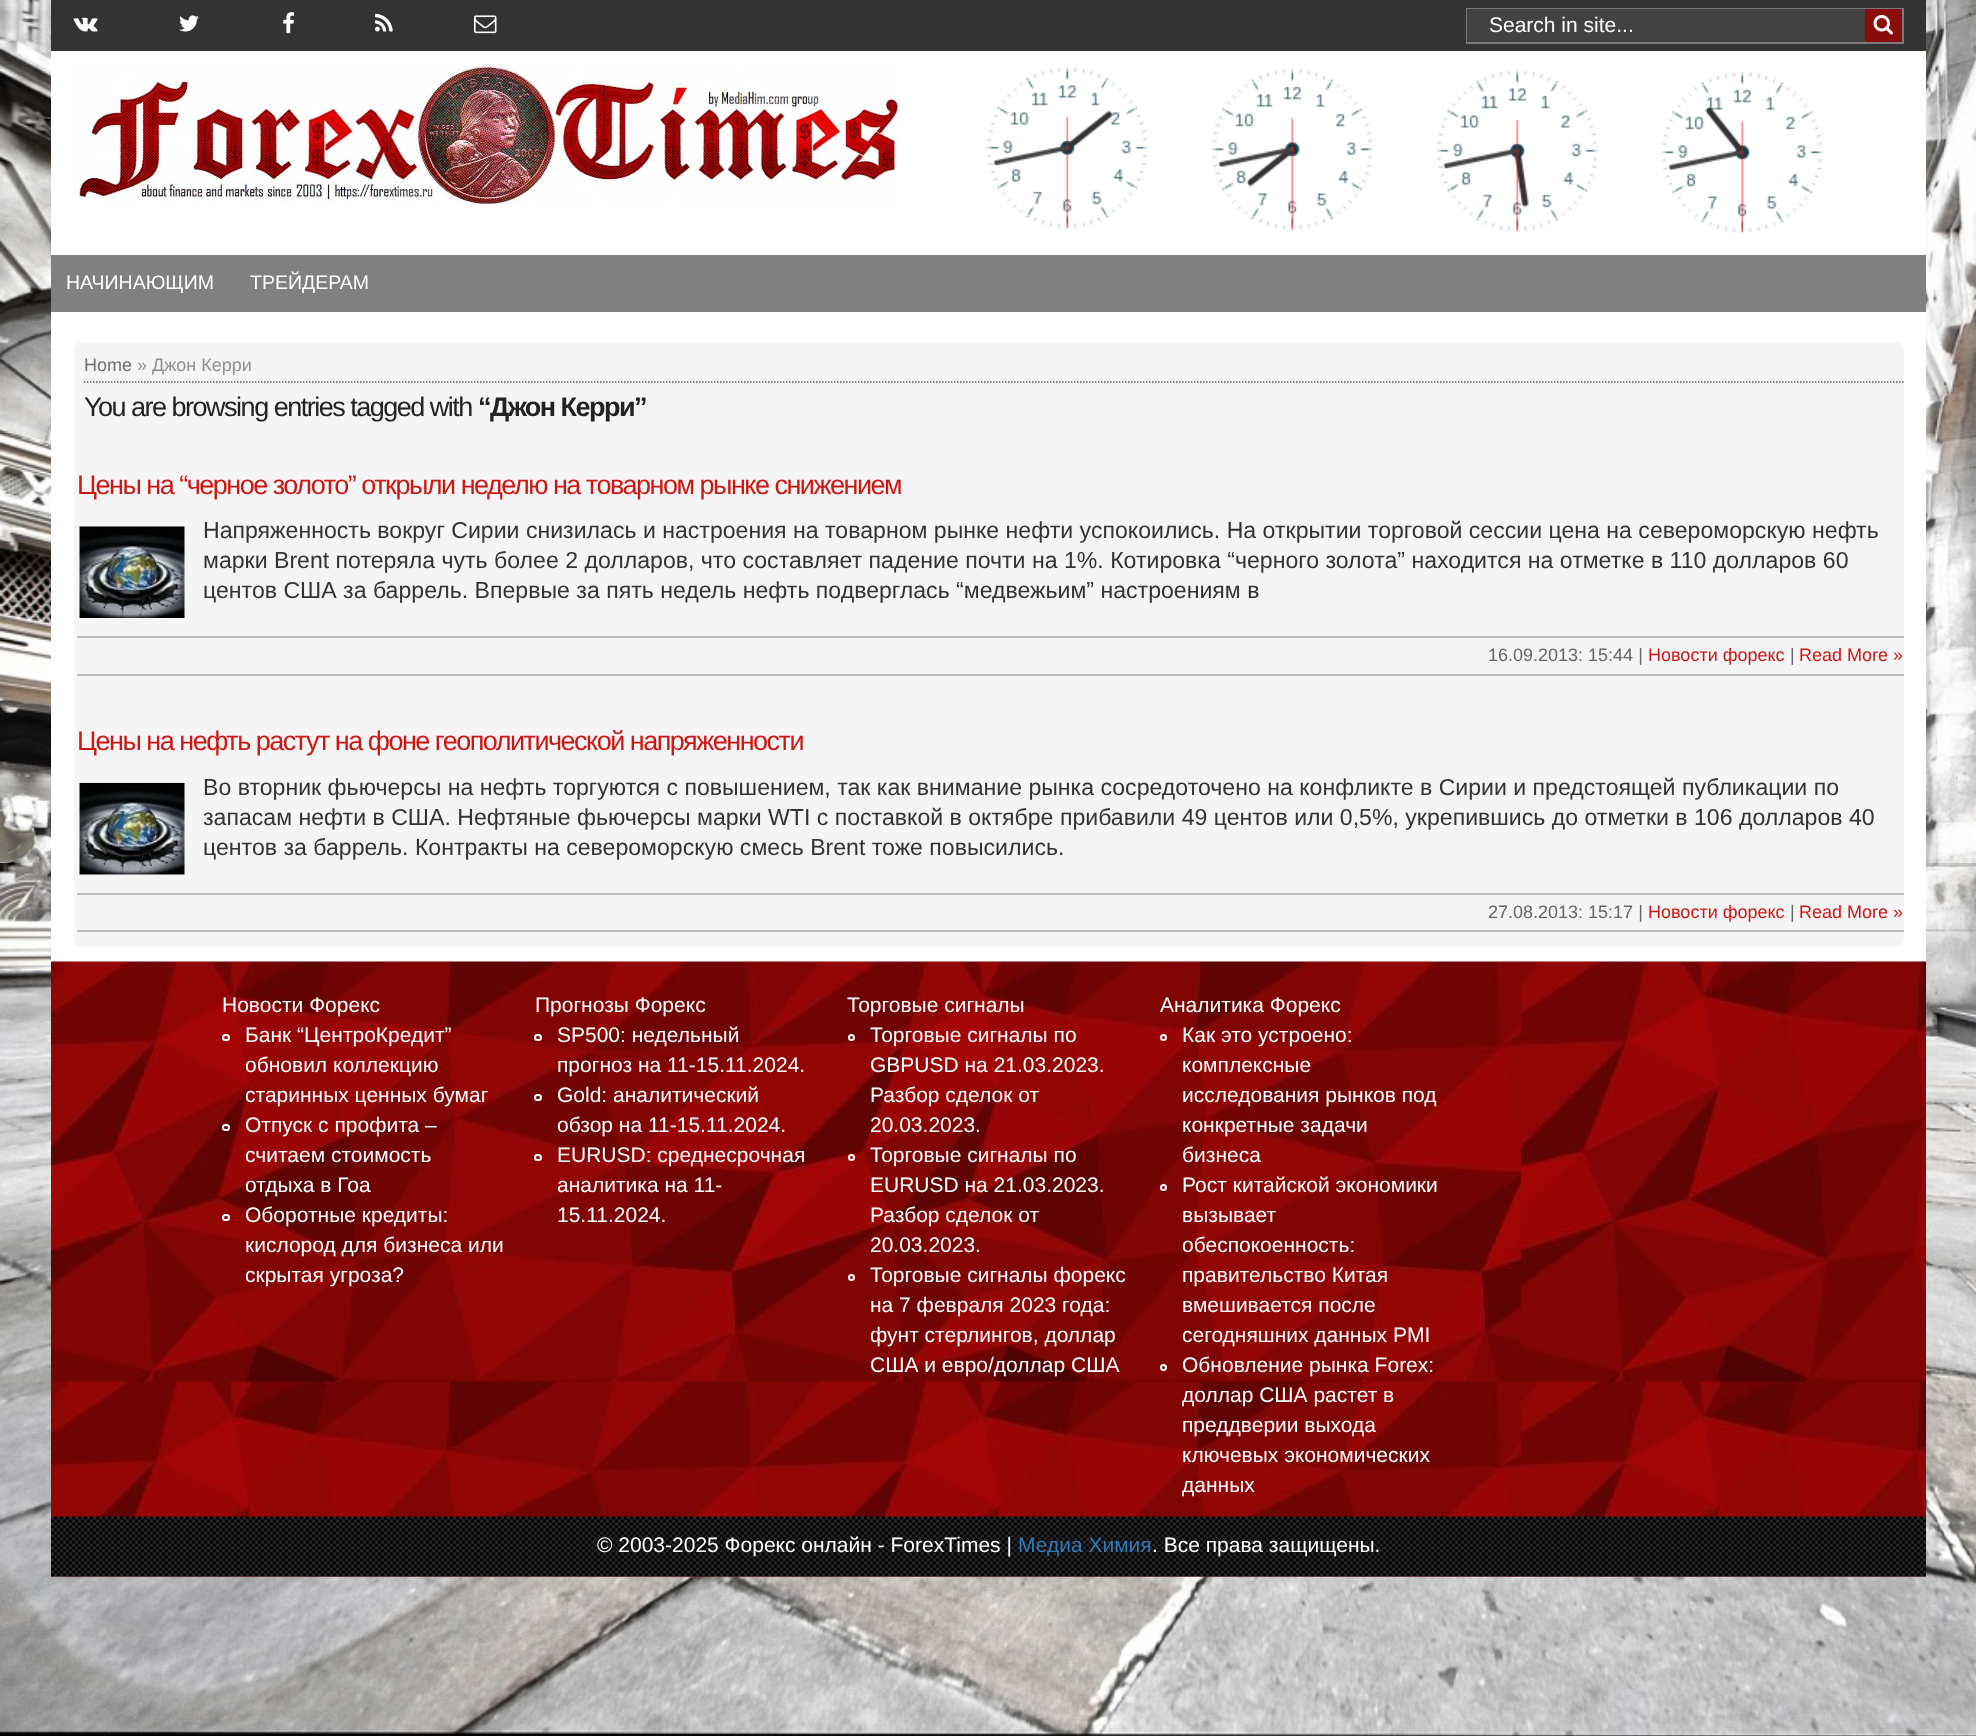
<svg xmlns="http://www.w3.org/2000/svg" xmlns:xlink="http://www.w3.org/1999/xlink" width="1976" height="1736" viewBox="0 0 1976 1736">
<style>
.cls-1{font:21px Liberation Sans;fill:#ffffff}
.cls-2{font:19.5px Liberation Sans;fill:#ffffff}
.cls-3{font:18px Liberation Sans;fill:#6f6f6f}
.cls-4{font:18px Liberation Sans;fill:#8f8f8f}
.cls-5{font:27px Liberation Sans;letter-spacing:-1.5px;fill:#222222}
.cls-6{font:bold 27px Liberation Sans;letter-spacing:-1.5px;fill:#222222}
.cls-7{font:27px Liberation Sans;letter-spacing:-1.5px;fill:#cd1713}
.cls-8{font:23.1px Liberation Sans;fill:#333333}
.cls-9{font:18px Liberation Sans;fill:#666666}
.cls-10{font:18px Liberation Sans;fill:#cd1713}
.cls-11{font:21px Liberation Sans;fill:#337ab7}
</style>
<rect width="100%" height="100%" fill="#ffffff"/>
<image xlink:href="image0.png" x="0" y="0" width="1976" height="1736"/>
<rect fill="#ffffff" x="51" y="51" width="1875" height="911"/>
<rect fill="#333333" x="51" y="0" width="1875" height="51"/>
<image xlink:href="image1.png" x="73" y="17" width="25" height="15"/>
<image xlink:href="image2.png" x="179" y="15" width="20" height="17"/>
<image xlink:href="image3.png" x="283" y="12" width="12" height="22"/>
<image xlink:href="image4.png" x="375" y="13" width="18" height="19"/>
<image xlink:href="image5.png" x="474" y="15" width="23" height="19"/>
<rect fill="none" stroke="#7a7a7a" stroke-width="2" x="1467" y="9" width="436" height="34"/>
<rect fill="#424242" x="1467" y="9" width="398" height="33"/>
<rect fill="#8a0d0d" x="1865" y="9" width="37" height="33"/>
<image xlink:href="image6.png" x="1873" y="15" width="20" height="20"/>
<image xlink:href="image7.png" x="73" y="66" width="826" height="138"/>
<image xlink:href="image8.png" x="986" y="66" width="162" height="163"/>
<image xlink:href="image9.png" x="1211" y="68" width="162" height="162"/>
<image xlink:href="image10.png" x="1436" y="69" width="162" height="163"/>
<image xlink:href="image11.png" x="1661" y="71" width="162" height="162"/>
<rect fill="#808080" x="51" y="255" width="1875" height="57"/>
<rect fill="#f5f5f5" x="74" y="342" width="1830" height="605" rx="8"/>
<path fill="none" stroke="#666666" stroke-width="1.5" stroke-dasharray="1.5 1.5" d="M84 382H1903.5"/>
<image xlink:href="image12.png" x="79" y="526" width="106" height="92"/>
<rect fill="#bcbcbc" x="77" y="636" width="1827" height="2"/>
<rect fill="#bcbcbc" x="77" y="674" width="1827" height="2"/>
<image xlink:href="image13.png" x="79" y="783" width="106" height="92"/>
<rect fill="#bcbcbc" x="77" y="893" width="1827" height="2"/>
<rect fill="#bcbcbc" x="77" y="930" width="1827" height="2"/>
<image xlink:href="image14.png" x="51" y="961" width="1875" height="616"/>
<rect fill="none" stroke="#ffffff" stroke-width="2" x="223" y="1035" width="6" height="5" rx="2.5"/>
<rect fill="none" stroke="#ffffff" stroke-width="2" x="223" y="1125" width="6" height="5" rx="2.5"/>
<rect fill="none" stroke="#ffffff" stroke-width="2" x="223" y="1215" width="6" height="5" rx="2.5"/>
<rect fill="none" stroke="#ffffff" stroke-width="2" x="535" y="1035" width="6" height="5" rx="2.5"/>
<rect fill="none" stroke="#ffffff" stroke-width="2" x="535" y="1095" width="6" height="5" rx="2.5"/>
<rect fill="none" stroke="#ffffff" stroke-width="2" x="535" y="1155" width="6" height="5" rx="2.5"/>
<circle fill="none" stroke="#ffffff" stroke-width="2" cx="851.5" cy="1037.5" r="2.5"/>
<circle fill="none" stroke="#ffffff" stroke-width="2" cx="851.5" cy="1157.5" r="2.5"/>
<circle fill="none" stroke="#ffffff" stroke-width="2" cx="851.5" cy="1277.5" r="2.5"/>
<circle fill="none" stroke="#ffffff" stroke-width="2" cx="1163.5" cy="1037.5" r="2.5"/>
<circle fill="none" stroke="#ffffff" stroke-width="2" cx="1163.5" cy="1187.5" r="2.5"/>
<circle fill="none" stroke="#ffffff" stroke-width="2" cx="1163.5" cy="1367.5" r="2.5"/>
<image xlink:href="image15.png" x="51" y="1516" width="1875" height="61"/>
<text class="cls-1" x="1489" y="32">Search in site...</text>
<text class="cls-2" x="66" y="289">НАЧИНАЮЩИМ</text>
<text class="cls-2" x="250" y="289">ТРЕЙДЕРАМ</text>
<text class="cls-3" x="84" y="371">Home</text>
<text class="cls-4" x="137" y="371">» Джон Керри</text>
<text class="cls-5" x="84" y="416">You are browsing entries tagged with</text>
<text class="cls-6" x="478" y="416">“Джон Керри”</text>
<text class="cls-7" x="77" y="494">Цены на “черное золото” открыли неделю на товарном рынке снижением</text>
<text class="cls-8"><tspan x="203" y="538">Напряженность вокруг Сирии снизилась и настроения на товарном рынке нефти успокоились. На открытии торговой сессии цена на североморскую нефть</tspan><tspan x="203" y="568">марки Brent потеряла чуть более 2 долларов, что составляет падение почти на 1%. Котировка “черного золота” находится на отметке в 110 долларов 60</tspan><tspan x="203" y="598">центов США за баррель. Впервые за пять недель нефть подверглась “медвежьим” настроениям в</tspan></text>
<text class="cls-9" x="1488" y="661">16.09.2013: 15:44 |</text>
<text class="cls-10" x="1648" y="661">Новости форекс</text>
<text class="cls-9" x="1790" y="661">|</text>
<text class="cls-10" x="1799" y="661">Read More »</text>
<text class="cls-7" x="77" y="750">Цены на нефть растут на фоне геополитической напряженности</text>
<text class="cls-8"><tspan x="203" y="795">Во вторник фьючерсы на нефть торгуются с повышением, так как внимание рынка сосредоточено на конфликте в Сирии и предстоящей публикации по</tspan><tspan x="203" y="825">запасам нефти в США. Нефтяные фьючерсы марки WTI с поставкой в октябре прибавили 49 центов или 0,5%, укрепившись до отметки в 106 долларов 40</tspan><tspan x="203" y="855">центов за баррель. Контракты на североморскую смесь Brent тоже повысились.</tspan></text>
<text class="cls-9" x="1488" y="918">27.08.2013: 15:17 |</text>
<text class="cls-10" x="1648" y="918">Новости форекс</text>
<text class="cls-9" x="1790" y="918">|</text>
<text class="cls-10" x="1799" y="918">Read More »</text>
<text class="cls-1" x="222" y="1012">Новости Форекс</text>
<text class="cls-1"><tspan x="245" y="1042">Банк “ЦентроКредит”</tspan><tspan x="245" y="1072">обновил коллекцию</tspan><tspan x="245" y="1102">старинных ценных бумаг</tspan><tspan x="245" y="1132">Отпуск с профита –</tspan><tspan x="245" y="1162">считаем стоимость</tspan><tspan x="245" y="1192">отдыха в Гоа</tspan><tspan x="245" y="1222">Оборотные кредиты:</tspan><tspan x="245" y="1252">кислород для бизнеса или</tspan><tspan x="245" y="1282">скрытая угроза?</tspan></text>
<text class="cls-1" x="535" y="1012">Прогнозы Форекс</text>
<text class="cls-1"><tspan x="557" y="1042">SP500: недельный</tspan><tspan x="557" y="1072">прогноз на 11-15.11.2024.</tspan><tspan x="557" y="1102">Gold: аналитический</tspan><tspan x="557" y="1132">обзор на 11-15.11.2024.</tspan><tspan x="557" y="1162">EURUSD: среднесрочная</tspan><tspan x="557" y="1192">аналитика на 11-</tspan><tspan x="557" y="1222">15.11.2024.</tspan></text>
<text class="cls-1" x="847" y="1012">Торговые сигналы</text>
<text class="cls-1"><tspan x="870" y="1042">Торговые сигналы по</tspan><tspan x="870" y="1072">GBPUSD на 21.03.2023.</tspan><tspan x="870" y="1102">Разбор сделок от</tspan><tspan x="870" y="1132">20.03.2023.</tspan><tspan x="870" y="1162">Торговые сигналы по</tspan><tspan x="870" y="1192">EURUSD на 21.03.2023.</tspan><tspan x="870" y="1222">Разбор сделок от</tspan><tspan x="870" y="1252">20.03.2023.</tspan><tspan x="870" y="1282">Торговые сигналы форекс</tspan><tspan x="870" y="1312">на 7 февраля 2023 года:</tspan><tspan x="870" y="1342">фунт стерлингов, доллар</tspan><tspan x="870" y="1372">США и евро/доллар США</tspan></text>
<text class="cls-1" x="1160" y="1012">Аналитика Форекс</text>
<text class="cls-1"><tspan x="1182" y="1042">Как это устроено:</tspan><tspan x="1182" y="1072">комплексные</tspan><tspan x="1182" y="1102">исследования рынков под</tspan><tspan x="1182" y="1132">конкретные задачи</tspan><tspan x="1182" y="1162">бизнеса</tspan><tspan x="1182" y="1192">Рост китайской экономики</tspan><tspan x="1182" y="1222">вызывает</tspan><tspan x="1182" y="1252">обеспокоенность:</tspan><tspan x="1182" y="1282">правительство Китая</tspan><tspan x="1182" y="1312">вмешивается после</tspan><tspan x="1182" y="1342">сегодняшних данных PMI</tspan><tspan x="1182" y="1372">Обновление рынка Forex:</tspan><tspan x="1182" y="1402">доллар США растет в</tspan><tspan x="1182" y="1432">преддверии выхода</tspan><tspan x="1182" y="1462">ключевых экономических</tspan><tspan x="1182" y="1492">данных</tspan></text>
<text class="cls-1" x="597" y="1552">© 2003-2025 Форекс онлайн - ForexTimes |</text>
<text class="cls-11" x="1018" y="1552">Медиа Химия</text>
<text class="cls-1" x="1152" y="1552">. Все права защищены.</text>
</svg>
